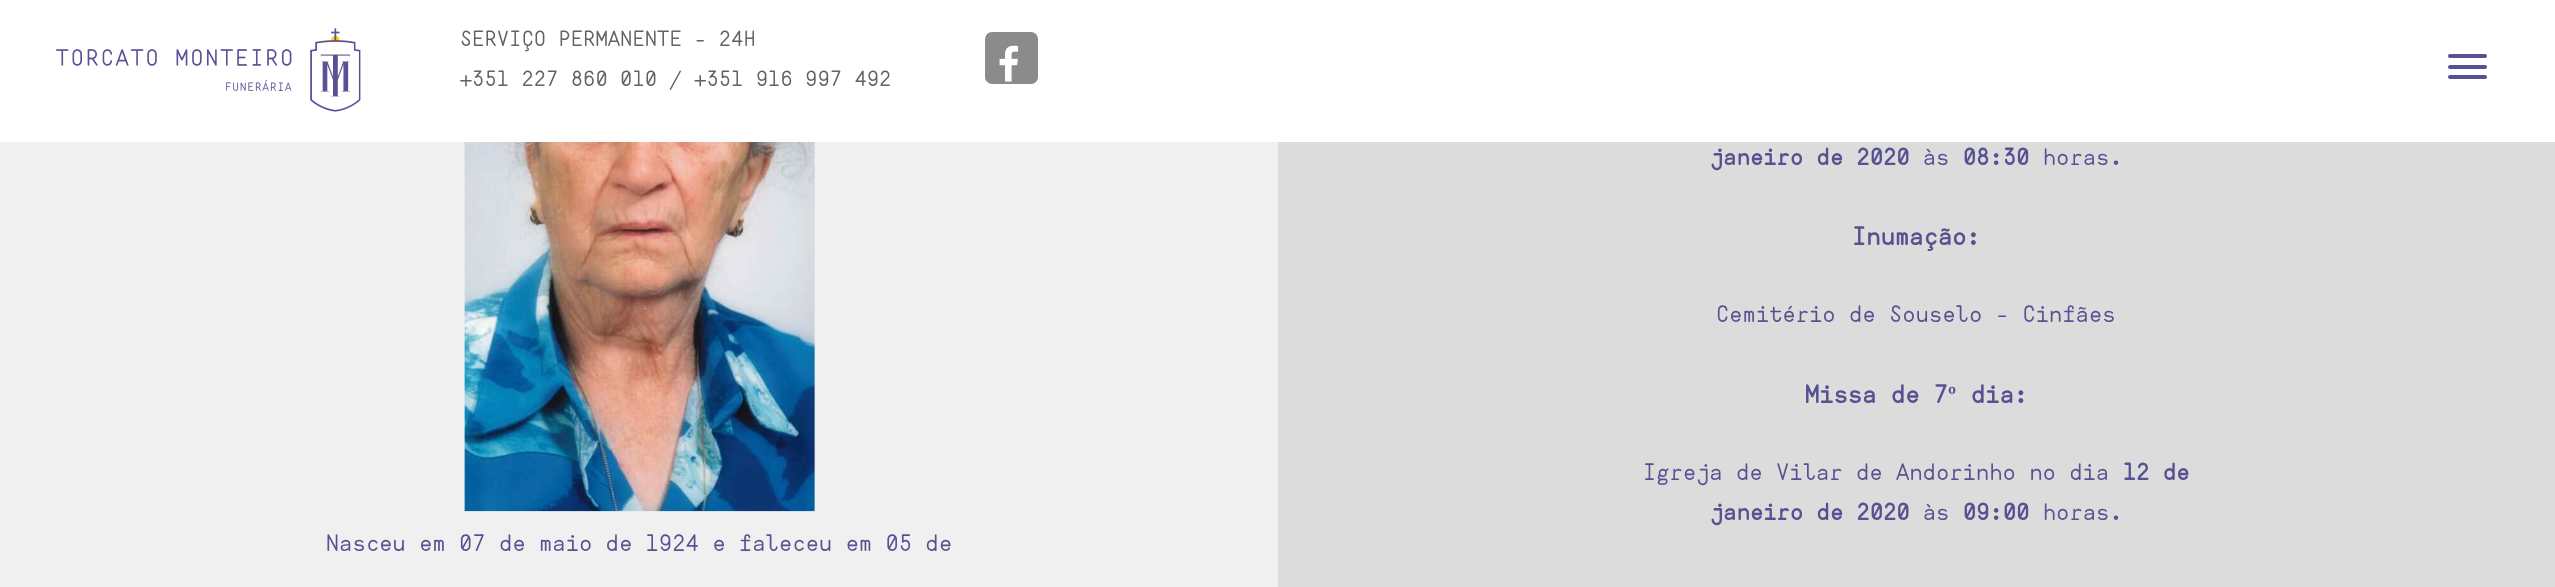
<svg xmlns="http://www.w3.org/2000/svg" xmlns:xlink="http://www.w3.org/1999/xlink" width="2555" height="587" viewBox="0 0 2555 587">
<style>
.cls-1{font:21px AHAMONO;letter-spacing:0.45px;fill:#626262}
.cls-2{font:bold 22.75px AHAMONO;letter-spacing:0.45px;fill:#565191}
.cls-3{font:22.75px AHAMONO;letter-spacing:0.45px;fill:#565191}
.cls-4{font:bold 24.5px AHAMONO;letter-spacing:0.45px;fill:#565191}
.cls-5{font:bold 24.5px Liberation Serif;letter-spacing:0.45px;fill:#565191}
</style>
<rect width="100%" height="100%" fill="#f0f0f0"/>
<rect fill="#ffffff" x="0" y="0" width="2555" height="142"/>
<image xlink:href="image0.png" x="56" y="28" width="305" height="84"/>
<rect fill="#8b8b8b" x="985" y="32" width="53" height="52" rx="7"/>
<image xlink:href="image1.png" x="999" y="45" width="20" height="37"/>
<rect fill="#565191" x="2448" y="54" width="39" height="4" rx="2"/>
<rect fill="#565191" x="2448" y="65" width="39" height="4" rx="2"/>
<rect fill="#565191" x="2448" y="75" width="39" height="4" rx="2"/>
<rect fill="#dcdcdc" x="1278" y="142" width="1277" height="445"/>
<image xlink:href="image2.png" x="464" y="142" width="351" height="370"/>
<text class="cls-1"><tspan x="460" y="46">SERVIÇO PERMANENTE - 24H</tspan><tspan x="460" y="86">+351 227 860 010 / +351 916 997 492</tspan></text>
<text class="cls-2" x="1710" y="165">janeiro de 2020</text>
<text class="cls-3" x="1923" y="165">às</text>
<text class="cls-2" x="1963" y="165">08:30</text>
<text class="cls-3" x="2043" y="165">horas.</text>
<text class="cls-4" x="1852" y="245">Inumação:</text>
<text class="cls-3" x="1716" y="322">Cemitério de Souselo - Cinfães</text>
<text class="cls-4" x="1805" y="403">Missa de 7</text>
<text class="cls-5" x="1948" y="403">º</text>
<text class="cls-4" x="1971" y="403">dia:</text>
<text class="cls-3" x="1643" y="480">Igreja de Vilar de Andorinho no dia</text>
<text class="cls-2" x="2123" y="480">12 de</text>
<text class="cls-2" x="1710" y="520">janeiro de 2020</text>
<text class="cls-3" x="1923" y="520">às</text>
<text class="cls-2" x="1963" y="520">09:00</text>
<text class="cls-3" x="2043" y="520">horas.</text>
<text class="cls-3" x="326" y="551">Nasceu em 07 de maio de 1924 e faleceu em 05 de</text>
</svg>
